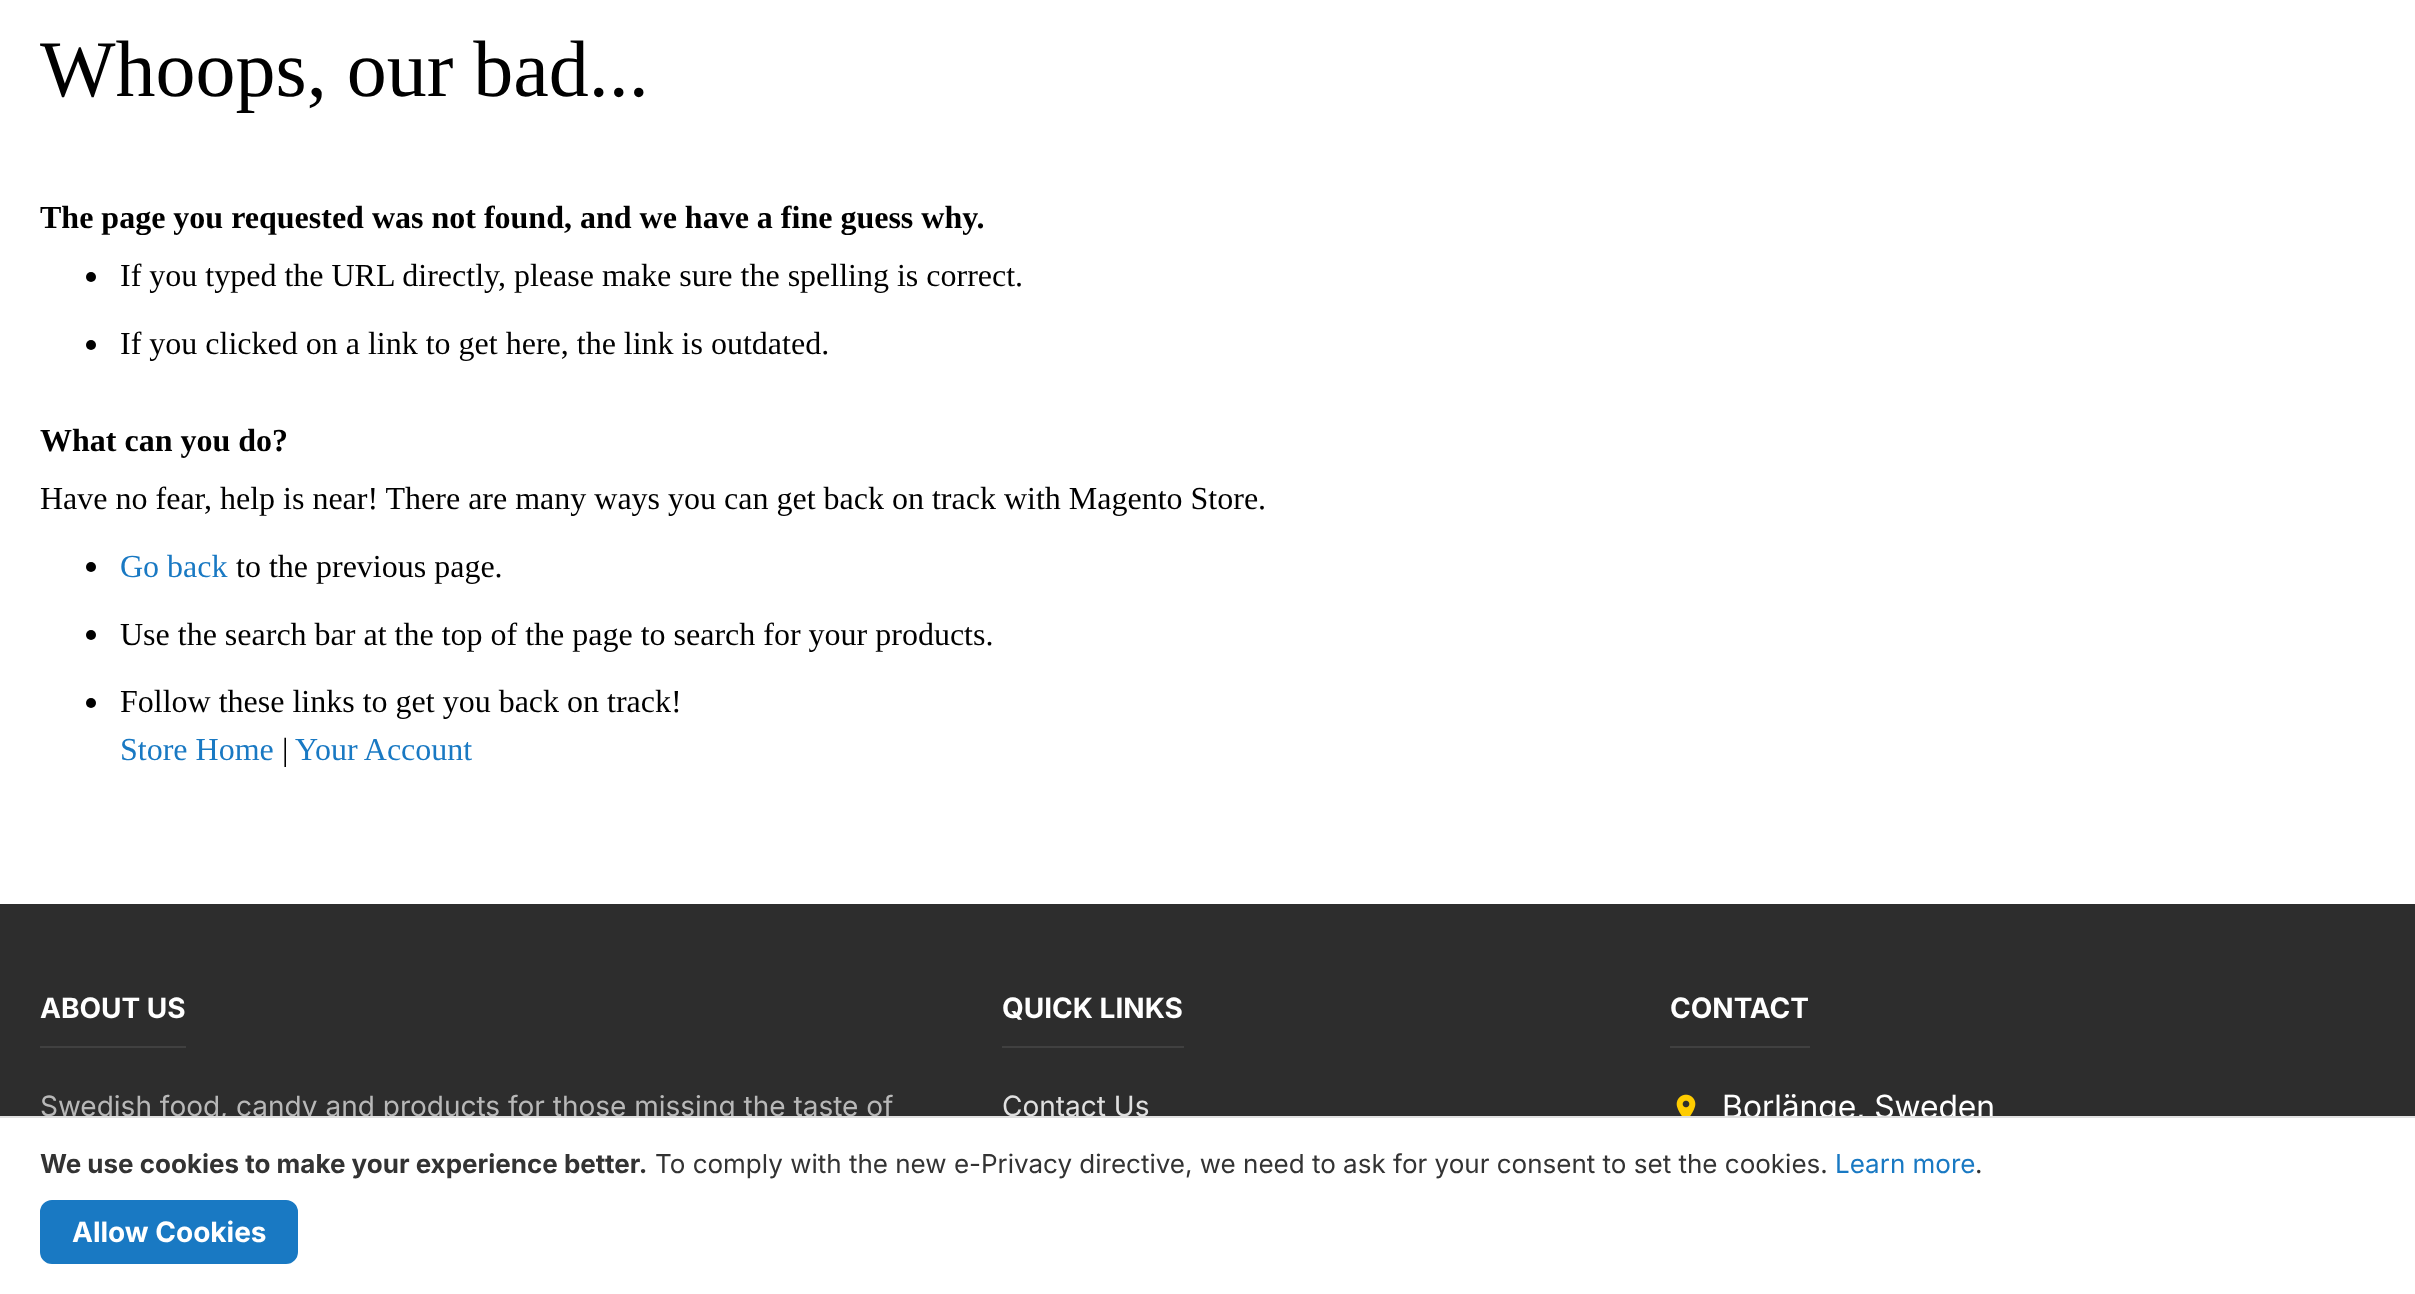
<svg xmlns="http://www.w3.org/2000/svg" xmlns:xlink="http://www.w3.org/1999/xlink" width="2415" height="1294" viewBox="0 0 2415 1294">
<style>
.cls-1{font:80px Liberation Serif;fill:#000000}
.cls-2{font:bold 32px Liberation Serif;fill:#000000}
.cls-3{font:32px Liberation Serif;fill:#000000}
.cls-4{font:32px Liberation Serif;fill:#1979c3}
.cls-5{font:bold 28px Inter;fill:#ffffff}
.cls-6{font:28px Inter;fill:#b8b8b8}
.cls-7{font:28px Inter;fill:#e0e0e0}
.cls-8{font:32px 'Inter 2';fill:#ffffff}
.cls-9{font:bold 26px Inter;fill:#333333}
.cls-10{font:26px Inter;fill:#333333}
.cls-11{font:26px Inter;fill:#1979c3}
</style>
<rect width="100%" height="100%" fill="#ffffff"/>
<circle fill="#000000" cx="91" cy="277" r="5"/>
<circle fill="#000000" cx="91" cy="345" r="5"/>
<circle fill="#000000" cx="91" cy="567" r="5"/>
<circle fill="#000000" cx="91" cy="635" r="5"/>
<circle fill="#000000" cx="91" cy="703" r="5"/>
<rect fill="#2d2d2d" x="0" y="904" width="2415" height="212"/>
<rect fill="#404040" x="40" y="1046" width="146" height="2"/>
<rect fill="#404040" x="1002" y="1046" width="182" height="2"/>
<rect fill="#404040" x="1670" y="1046" width="140" height="2"/>
<image xlink:href="image0.png" x="1676" y="1094" width="20" height="22"/>
<rect fill="#1979c3" stroke="#1979c3" stroke-width="2" x="41" y="1201" width="256" height="62" rx="11"/>
<text class="cls-1" x="40" y="96">Whoops, our bad...</text>
<text class="cls-2" x="40" y="228">The page you requested was not found, and we have a fine guess why.</text>
<text class="cls-3" x="120" y="286">If you typed the URL directly, please make sure the spelling is correct.</text>
<text class="cls-3" x="120" y="354">If you clicked on a link to get here, the link is outdated.</text>
<text class="cls-2" x="40" y="451">What can you do?</text>
<text class="cls-3" x="40" y="509">Have no fear, help is near! There are many ways you can get back on track with Magento Store.</text>
<text class="cls-4" x="120" y="577">Go back</text>
<text class="cls-3" x="236" y="577">to the previous page.</text>
<text class="cls-3" x="120" y="645">Use the search bar at the top of the page to search for your products.</text>
<text class="cls-3" x="120" y="712">Follow these links to get you back on track!</text>
<text class="cls-4" x="120" y="760">Store Home</text>
<text class="cls-3" x="282" y="760">|</text>
<text class="cls-4" x="295" y="760">Your Account</text>
<text class="cls-5" x="40" y="1018">ABOUT US</text>
<text class="cls-6" x="40" y="1116">Swedish food, candy and products for those missing the taste of</text>
<text class="cls-5" x="1002" y="1018">QUICK LINKS</text>
<text class="cls-7" x="1002" y="1116">Contact Us</text>
<text class="cls-5" x="1670" y="1018">CONTACT</text>
<text class="cls-8" x="1722" y="1118">Borlänge, Sweden</text>
<rect fill="#ffffff" x="221" y="1118" width="513" height="4"/>
<rect fill="#e0e0e0" x="0" y="1116" width="2415" height="2"/>
<text class="cls-9" x="40" y="1173">We use cookies to make your experience better.</text>
<text class="cls-10" x="655" y="1173">To comply with the new e-Privacy directive, we need to ask for your consent to set the cookies.</text>
<text class="cls-11" x="1835" y="1173">Learn more</text>
<text class="cls-10" x="1975" y="1173">.</text>
<text class="cls-5" x="72" y="1242">Allow Cookies</text>
</svg>
